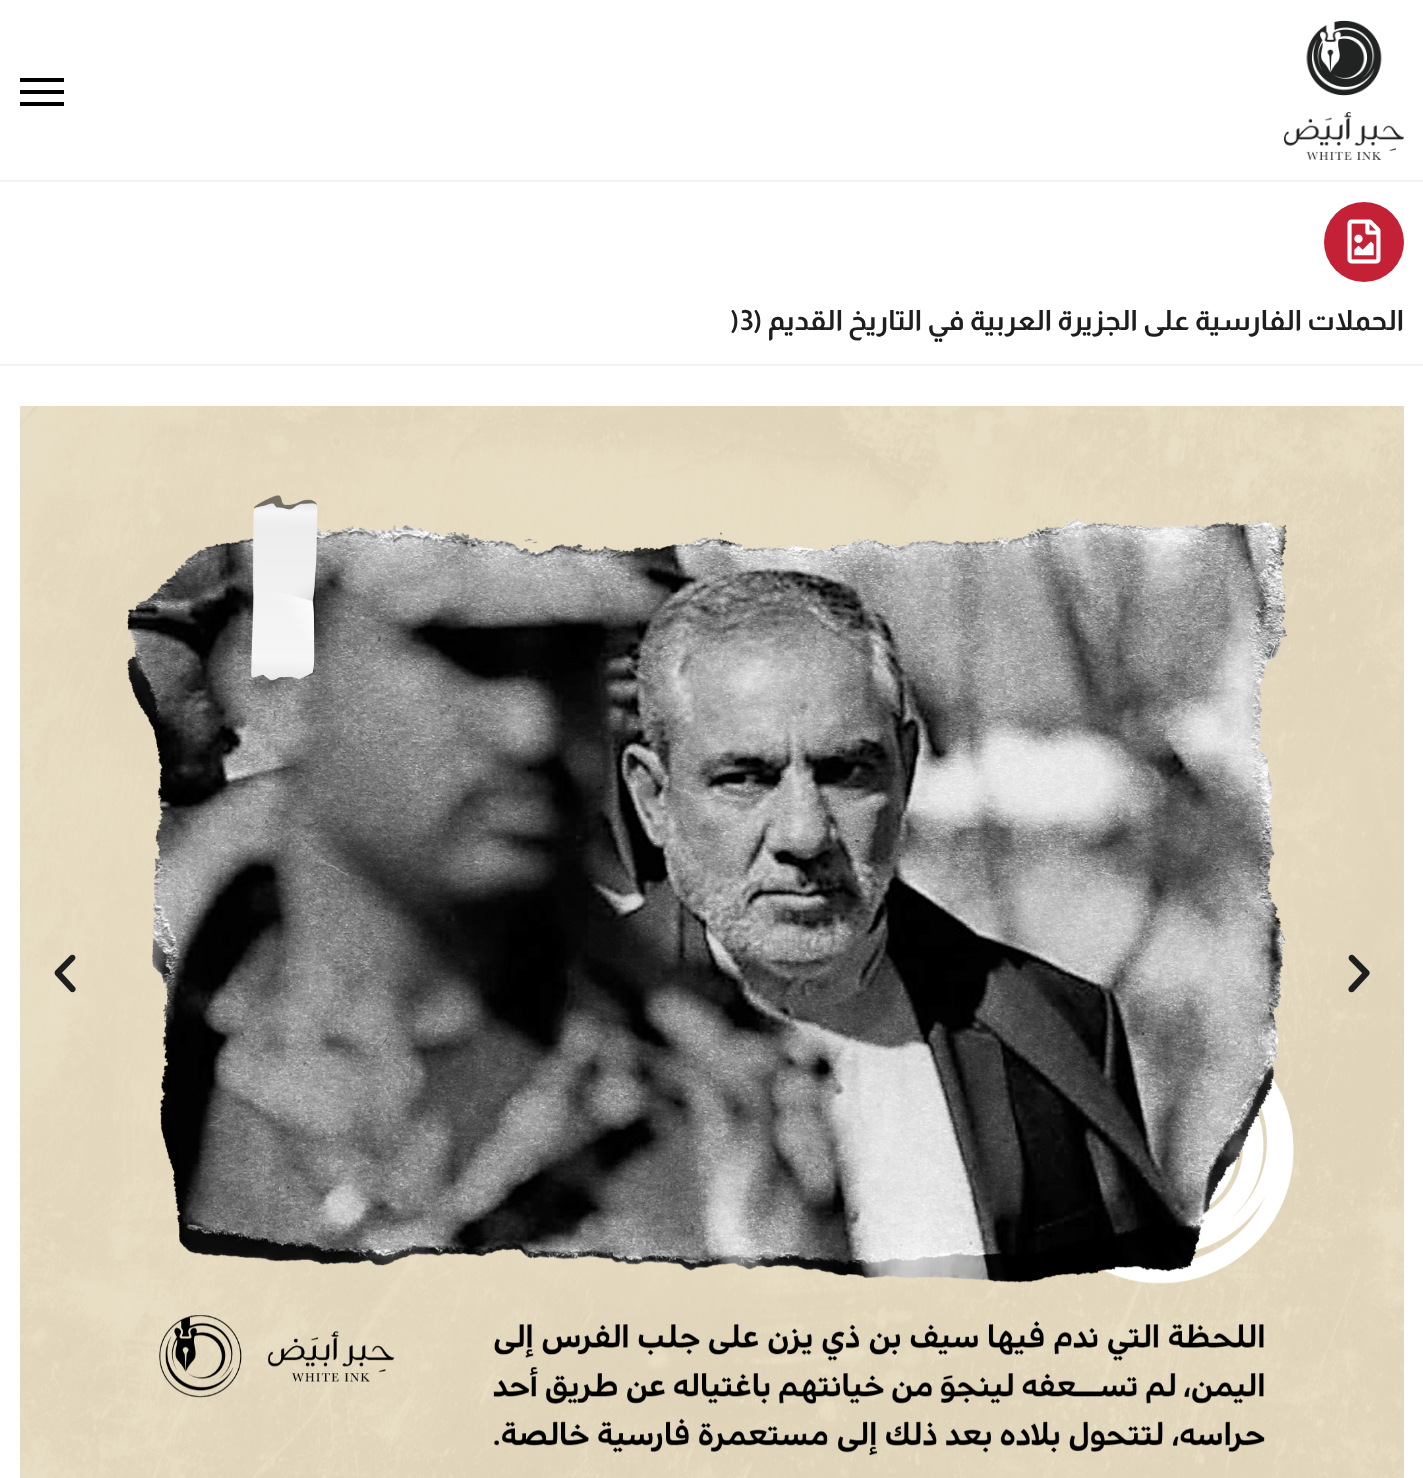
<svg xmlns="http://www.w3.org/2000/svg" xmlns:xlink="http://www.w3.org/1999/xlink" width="1423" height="1478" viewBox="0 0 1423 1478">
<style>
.cls-1{font:bold 28px Almarai;direction:rtl;fill:#1e1e1e}
.cls-2{font:bold 28px Almarai;fill:#1e1e1e}
</style>
<rect width="100%" height="100%" fill="#ffffff"/>
<image xlink:href="image0.png" x="1284" y="20" width="120" height="140"/>
<rect fill="#000000" x="20" y="78" width="44" height="4"/>
<rect fill="#000000" x="20" y="90" width="44" height="4"/>
<rect fill="#000000" x="20" y="102" width="44" height="4"/>
<rect fill="#f4f2f2" x="0" y="180" width="1423" height="2"/>
<rect fill="#f4f2f2" x="0" y="364" width="1423" height="2"/>
<circle fill="#c42136" cx="1364" cy="242" r="40"/>
<image xlink:href="image1.png" x="1347" y="219" width="34" height="45"/>
<image xlink:href="image2.png" x="20" y="406" width="1384" height="1072"/>
<image xlink:href="image3.png" x="1348" y="954" width="22" height="39"/>
<image xlink:href="image4.png" x="54" y="954" width="22" height="39"/>
<text class="cls-1" x="1404" y="330">الحملات الفارسية على الجزيرة العربية في التاريخ القديم (</text>
<text class="cls-2" x="730" y="330">)3</text>
</svg>
